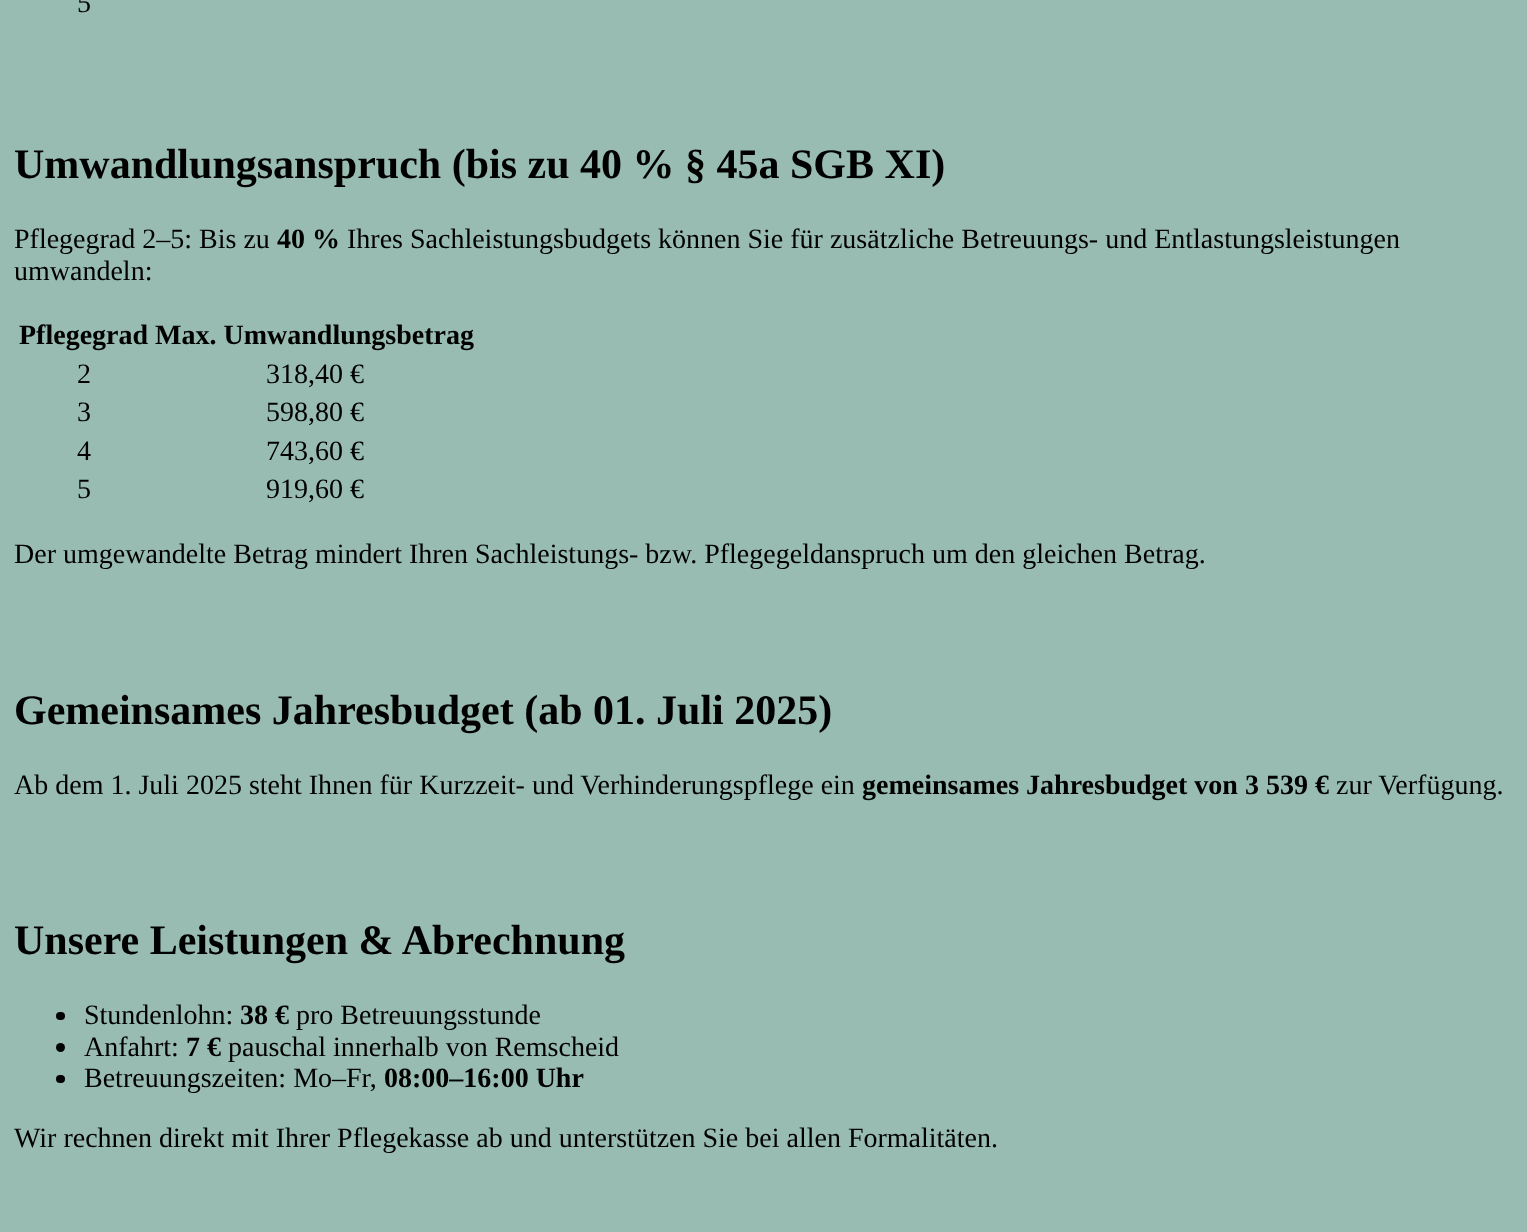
<svg xmlns="http://www.w3.org/2000/svg" xmlns:xlink="http://www.w3.org/1999/xlink" width="1527" height="1232" viewBox="0 0 1527 1232">
<style>
.cls-1{font:28px Liberation Serif;fill:#000000}
.cls-2{font:bold 42px Liberation Serif;fill:#000000}
.cls-3{font:bold 28px Liberation Serif;fill:#000000}
</style>
<rect width="100%" height="100%" fill="#98bcb1"/>
<rect fill="#000000" x="56" y="1012" width="9" height="8" rx="4"/>
<circle fill="#000000" cx="60.5" cy="1047.5" r="4.5"/>
<rect fill="#000000" x="56" y="1075" width="9" height="8" rx="4"/>
<text class="cls-1" x="77" y="12">5</text>
<text class="cls-2" x="14" y="178">Umwandlungsanspruch (bis zu 40 % § 45a SGB XI)</text>
<text class="cls-1" x="14" y="248">Pflegegrad 2–5: Bis zu</text>
<text class="cls-3" x="277" y="248">40 %</text>
<text class="cls-1" x="347" y="248">Ihres Sachleistungsbudgets können Sie für zusätzliche Betreuungs- und Entlastungsleistungen</text>
<text class="cls-1" x="14" y="280">umwandeln:</text>
<text class="cls-3" x="19" y="344">Pflegegrad Max. Umwandlungsbetrag</text>
<text class="cls-1" x="77" y="383">2</text>
<text class="cls-1" x="266" y="383">318,40 €</text>
<text class="cls-1" x="77" y="421">3</text>
<text class="cls-1" x="266" y="421">598,80 €</text>
<text class="cls-1" x="77" y="460">4</text>
<text class="cls-1" x="266" y="460">743,60 €</text>
<text class="cls-1" x="77" y="498">5</text>
<text class="cls-1" x="266" y="498">919,60 €</text>
<text class="cls-1" x="14" y="563">Der umgewandelte Betrag mindert Ihren Sachleistungs- bzw. Pflegegeldanspruch um den gleichen Betrag.</text>
<text class="cls-2" x="14" y="724">Gemeinsames Jahresbudget (ab 01. Juli 2025)</text>
<text class="cls-1" x="14" y="794">Ab dem 1. Juli 2025 steht Ihnen für Kurzzeit- und Verhinderungspflege ein</text>
<text class="cls-3" x="862" y="794">gemeinsames Jahresbudget von 3 539 €</text>
<text class="cls-1" x="1336" y="794">zur Verfügung.</text>
<text class="cls-2" x="14" y="954">Unsere Leistungen &amp; Abrechnung</text>
<text class="cls-1" x="84" y="1024">Stundenlohn:</text>
<text class="cls-3" x="240" y="1024">38 €</text>
<text class="cls-1" x="296" y="1024">pro Betreuungsstunde</text>
<text class="cls-1" x="84" y="1056">Anfahrt:</text>
<text class="cls-3" x="186" y="1056">7 €</text>
<text class="cls-1" x="228" y="1056">pauschal innerhalb von Remscheid</text>
<text class="cls-1" x="84" y="1087">Betreuungszeiten: Mo–Fr,</text>
<text class="cls-3" x="384" y="1087">08:00–16:00 Uhr</text>
<text class="cls-1" x="14" y="1147">Wir rechnen direkt mit Ihrer Pflegekasse ab und unterstützen Sie bei allen Formalitäten.</text>
</svg>
